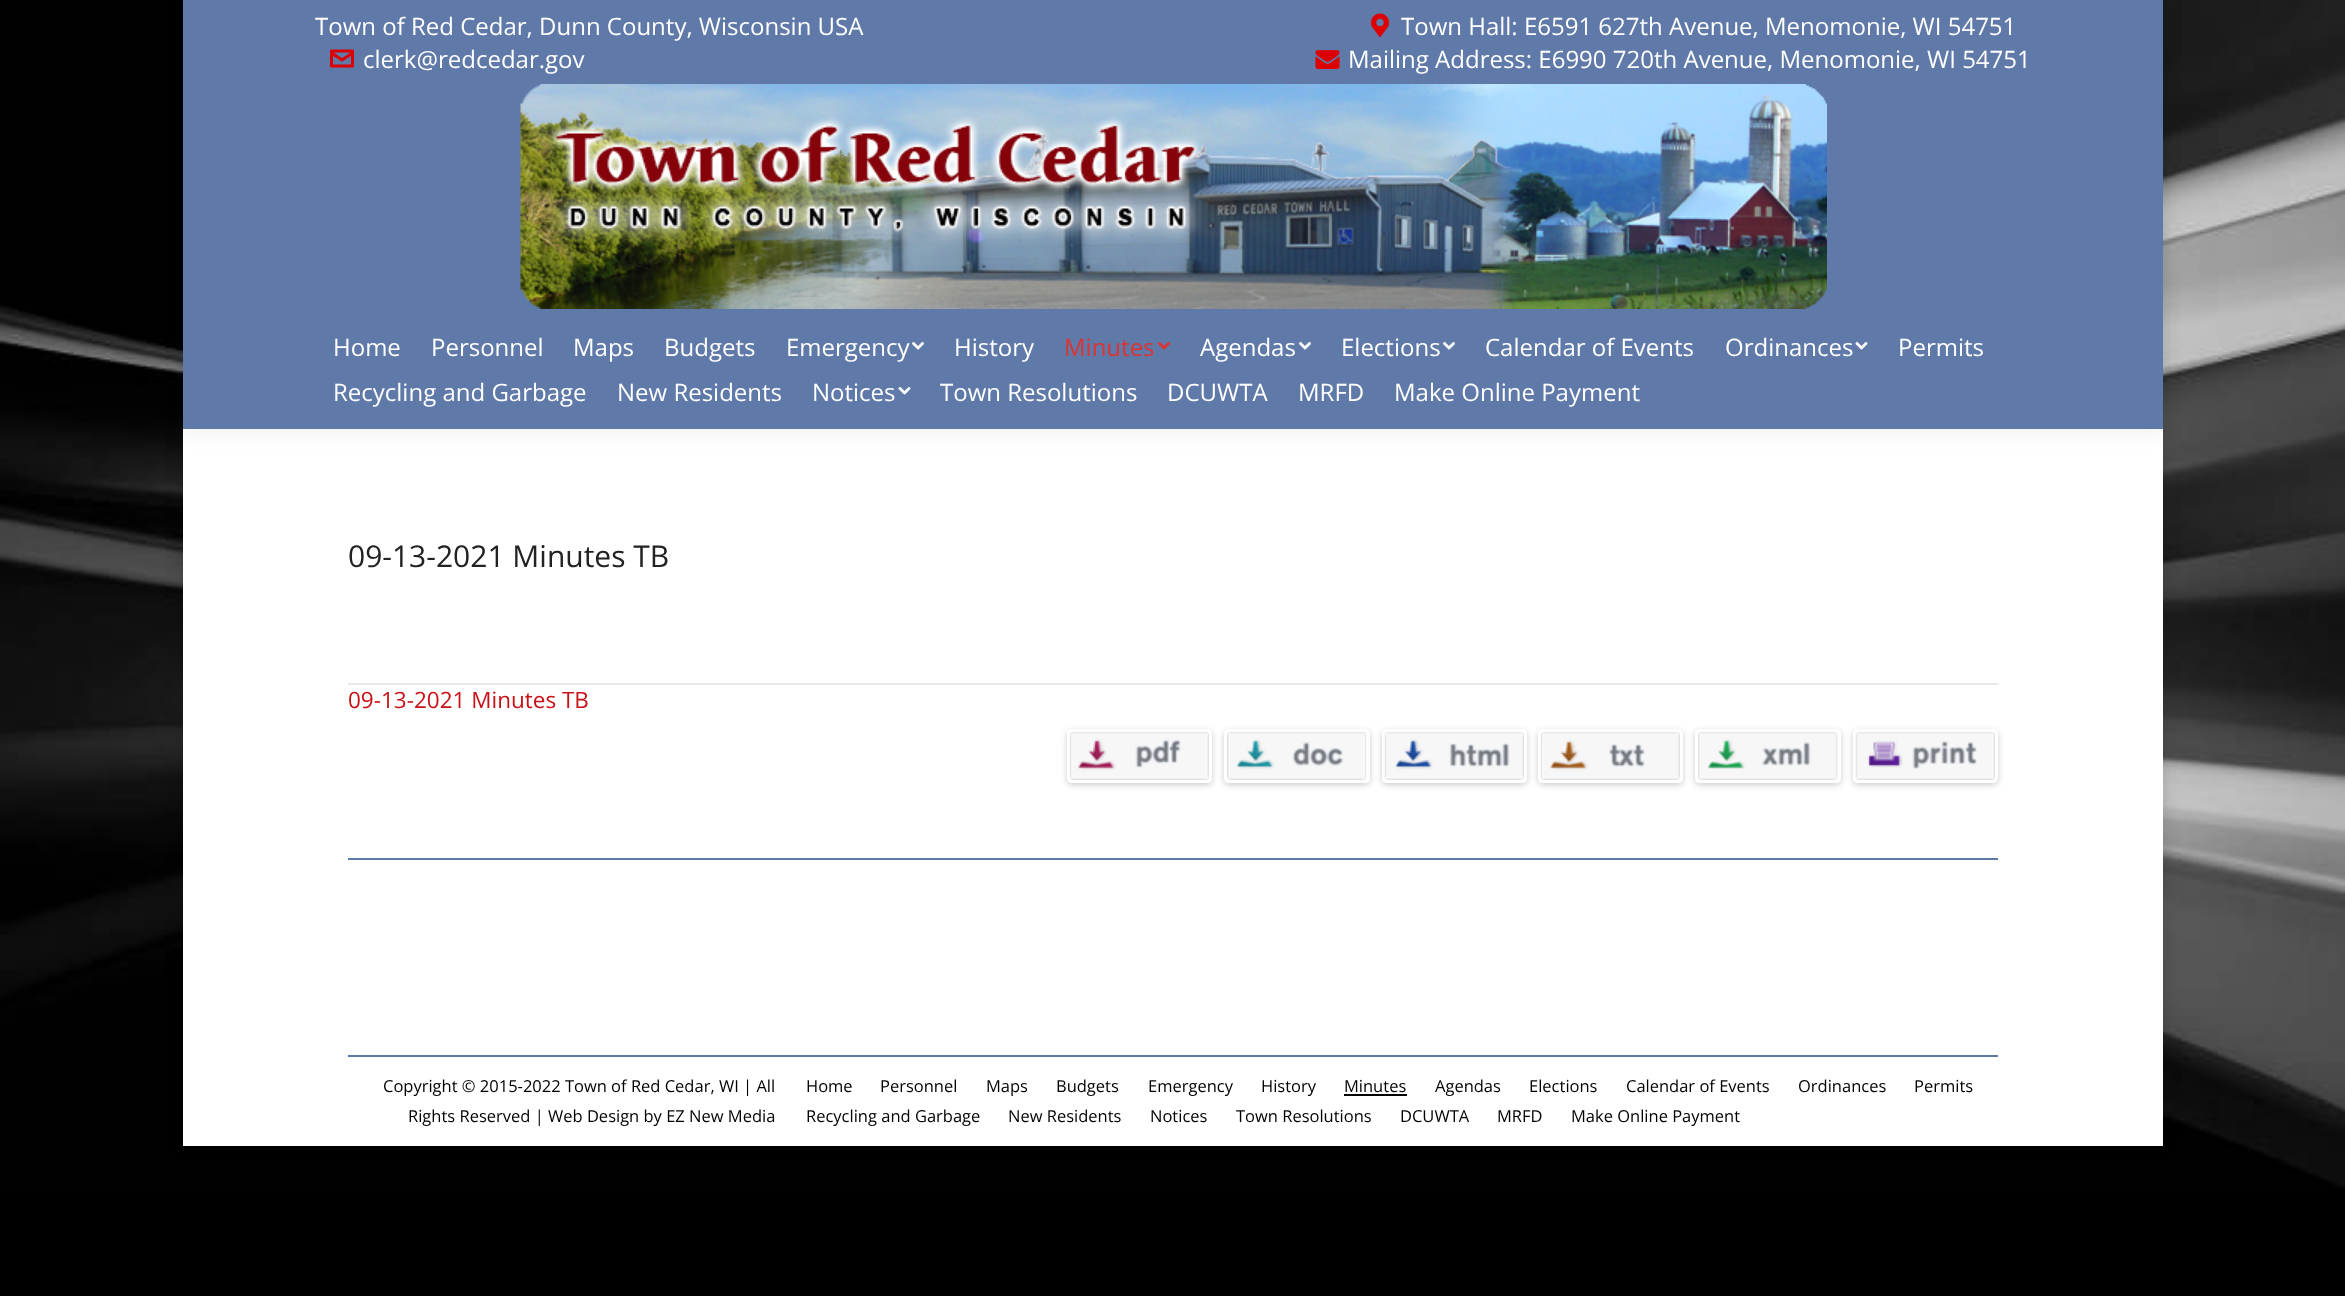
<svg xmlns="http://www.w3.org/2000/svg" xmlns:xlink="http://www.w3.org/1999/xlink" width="2345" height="1296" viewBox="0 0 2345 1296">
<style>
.cls-1{font:24px Open Sans;fill:#ffffff}
.cls-2{font:24px Open Sans;fill:#dd3333}
.cls-3{font:30px Open Sans;fill:#222222}
.cls-4{font:22.5px Open Sans;fill:#c91217}
.cls-5{font:16.5px Open Sans;fill:#000000}
</style>
<defs>
<clipPath id="clip1"><rect x="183" y="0" width="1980" height="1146"/></clipPath>
<clipPath id="clip2"><path d="M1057 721H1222V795H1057ZM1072 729H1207C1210 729 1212 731 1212 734V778C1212 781 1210 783 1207 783H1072C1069 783 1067 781 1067 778V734C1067 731 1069 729 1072 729Z" clip-rule="evenodd"/></clipPath>
<clipPath id="clip3"><path d="M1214 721H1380V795H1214ZM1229 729H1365C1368 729 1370 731 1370 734V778C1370 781 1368 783 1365 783H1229C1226 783 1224 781 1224 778V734C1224 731 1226 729 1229 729Z" clip-rule="evenodd"/></clipPath>
<clipPath id="clip4"><path d="M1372 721H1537V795H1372ZM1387 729H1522C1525 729 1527 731 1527 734V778C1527 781 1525 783 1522 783H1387C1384 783 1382 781 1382 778V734C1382 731 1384 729 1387 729Z" clip-rule="evenodd"/></clipPath>
<clipPath id="clip5"><path d="M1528 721H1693V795H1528ZM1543 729H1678C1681 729 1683 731 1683 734V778C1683 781 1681 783 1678 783H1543C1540 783 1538 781 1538 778V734C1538 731 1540 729 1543 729Z" clip-rule="evenodd"/></clipPath>
<clipPath id="clip6"><path d="M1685 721H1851V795H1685ZM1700 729H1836C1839 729 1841 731 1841 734V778C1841 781 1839 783 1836 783H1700C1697 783 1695 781 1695 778V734C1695 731 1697 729 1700 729Z" clip-rule="evenodd"/></clipPath>
<clipPath id="clip7"><path d="M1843 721H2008V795H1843ZM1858 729H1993C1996 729 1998 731 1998 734V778C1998 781 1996 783 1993 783H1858C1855 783 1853 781 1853 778V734C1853 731 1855 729 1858 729Z" clip-rule="evenodd"/></clipPath>
</defs>
<rect width="100%" height="100%" fill="#000000"/>
<image xlink:href="image0.png" x="0" y="0" width="2345" height="1188"/>
<rect fill="#000000" fill-opacity="0.15" filter="blur(9px)" x="183" y="0" width="1980" height="1146"/>
<rect fill="#ffffff" x="183" y="429" width="1980" height="717"/>
<g clip-path="url(#clip1)">
<rect fill="#000000" fill-opacity="0.07" filter="blur(11px)" x="182" y="-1" width="1983" height="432"/>
</g>
<rect fill="#5f79a8" x="183" y="0" width="1980" height="429"/>
<image xlink:href="image1.png" x="330" y="49" width="24" height="19"/>
<image xlink:href="image2.png" x="1371" y="13" width="18" height="25"/>
<image xlink:href="image3.png" x="1315" y="50" width="25" height="19"/>
<image xlink:href="image4.png" x="520" y="84" width="1307" height="225"/>
<image xlink:href="image5.png" x="912" y="342" width="12" height="8"/>
<image xlink:href="image6.png" x="1158" y="342" width="12" height="8"/>
<image xlink:href="image5.png" x="1299" y="342" width="12" height="8"/>
<image xlink:href="image5.png" x="1443" y="342" width="12" height="8"/>
<image xlink:href="image7.png" x="1855" y="342" width="13" height="8"/>
<image xlink:href="image7.png" x="898" y="387" width="13" height="8"/>
<rect fill="#e9e9e9" x="348" y="683" width="1650" height="2"/>
<g clip-path="url(#clip2)">
<rect fill="#000000" fill-opacity="0.2" filter="blur(3px)" x="1067" y="731" width="145" height="54" rx="5"/>
</g>
<g clip-path="url(#clip3)">
<rect fill="#000000" fill-opacity="0.2" filter="blur(3px)" x="1224" y="731" width="146" height="54" rx="5"/>
</g>
<g clip-path="url(#clip4)">
<rect fill="#000000" fill-opacity="0.2" filter="blur(3px)" x="1382" y="731" width="145" height="54" rx="5"/>
</g>
<g clip-path="url(#clip5)">
<rect fill="#000000" fill-opacity="0.2" filter="blur(3px)" x="1538" y="731" width="145" height="54" rx="5"/>
</g>
<g clip-path="url(#clip6)">
<rect fill="#000000" fill-opacity="0.2" filter="blur(3px)" x="1695" y="731" width="146" height="54" rx="5"/>
</g>
<g clip-path="url(#clip7)">
<rect fill="#000000" fill-opacity="0.2" filter="blur(3px)" x="1853" y="731" width="145" height="54" rx="5"/>
</g>
<image xlink:href="image8.png" x="1069" y="732" width="140" height="48"/>
<image xlink:href="image9.png" x="1227" y="732" width="140" height="48"/>
<image xlink:href="image10.png" x="1384" y="732" width="140" height="48"/>
<image xlink:href="image11.png" x="1540" y="732" width="140" height="48"/>
<image xlink:href="image12.png" x="1698" y="732" width="140" height="48"/>
<image xlink:href="image13.png" x="1855" y="732" width="140" height="48"/>
<rect fill="#5f79a8" x="348" y="858" width="1650" height="2"/>
<rect fill="#5f79a8" x="348" y="1055" width="1650" height="2"/>
<rect fill="#000000" x="1344" y="1094" width="63" height="2"/>
<text class="cls-1" x="315" y="35">Town of Red Cedar, Dunn County, Wisconsin USA</text>
<text class="cls-1" x="363" y="68">clerk@redcedar.gov</text>
<text class="cls-1" x="1401" y="35">Town Hall: E6591 627th Avenue, Menomonie, WI 54751</text>
<text class="cls-1" x="1348" y="68">Mailing Address: E6990 720th Avenue, Menomonie, WI 54751</text>
<text class="cls-1" x="333" y="356">Home</text>
<text class="cls-1" x="431" y="356">Personnel</text>
<text class="cls-1" x="573" y="356">Maps</text>
<text class="cls-1" x="664" y="356">Budgets</text>
<text class="cls-1" x="786" y="356">Emergency</text>
<text class="cls-1" x="954" y="356">History</text>
<text class="cls-2" x="1064" y="356">Minutes</text>
<text class="cls-1" x="1200" y="356">Agendas</text>
<text class="cls-1" x="1341" y="356">Elections</text>
<text class="cls-1" x="1485" y="356">Calendar of Events</text>
<text class="cls-1" x="1725" y="356">Ordinances</text>
<text class="cls-1" x="1898" y="356">Permits</text>
<text class="cls-1" x="333" y="401">Recycling and Garbage</text>
<text class="cls-1" x="617" y="401">New Residents</text>
<text class="cls-1" x="812" y="401">Notices</text>
<text class="cls-1" x="940" y="401">Town Resolutions</text>
<text class="cls-1" x="1167" y="401">DCUWTA</text>
<text class="cls-1" x="1298" y="401">MRFD</text>
<text class="cls-1" x="1394" y="401">Make Online Payment</text>
<text class="cls-3" x="348" y="567">09-13-2021 Minutes TB</text>
<text class="cls-4" x="348" y="708">09-13-2021 Minutes TB</text>
<text class="cls-5" x="383" y="1092">Copyright © 2015-2022 Town of Red Cedar, WI | All</text>
<text class="cls-5" x="408" y="1122">Rights Reserved | Web Design by EZ New Media</text>
<text class="cls-5" x="806" y="1092">Home</text>
<text class="cls-5" x="880" y="1092">Personnel</text>
<text class="cls-5" x="986" y="1092">Maps</text>
<text class="cls-5" x="1056" y="1092">Budgets</text>
<text class="cls-5" x="1148" y="1092">Emergency</text>
<text class="cls-5" x="1261" y="1092">History</text>
<text class="cls-5" x="1344" y="1092">Minutes</text>
<text class="cls-5" x="1435" y="1092">Agendas</text>
<text class="cls-5" x="1529" y="1092">Elections</text>
<text class="cls-5" x="1626" y="1092">Calendar of Events</text>
<text class="cls-5" x="1798" y="1092">Ordinances</text>
<text class="cls-5" x="1914" y="1092">Permits</text>
<text class="cls-5" x="806" y="1122">Recycling and Garbage</text>
<text class="cls-5" x="1008" y="1122">New Residents</text>
<text class="cls-5" x="1150" y="1122">Notices</text>
<text class="cls-5" x="1236" y="1122">Town Resolutions</text>
<text class="cls-5" x="1400" y="1122">DCUWTA</text>
<text class="cls-5" x="1497" y="1122">MRFD</text>
<text class="cls-5" x="1571" y="1122">Make Online Payment</text>
</svg>
